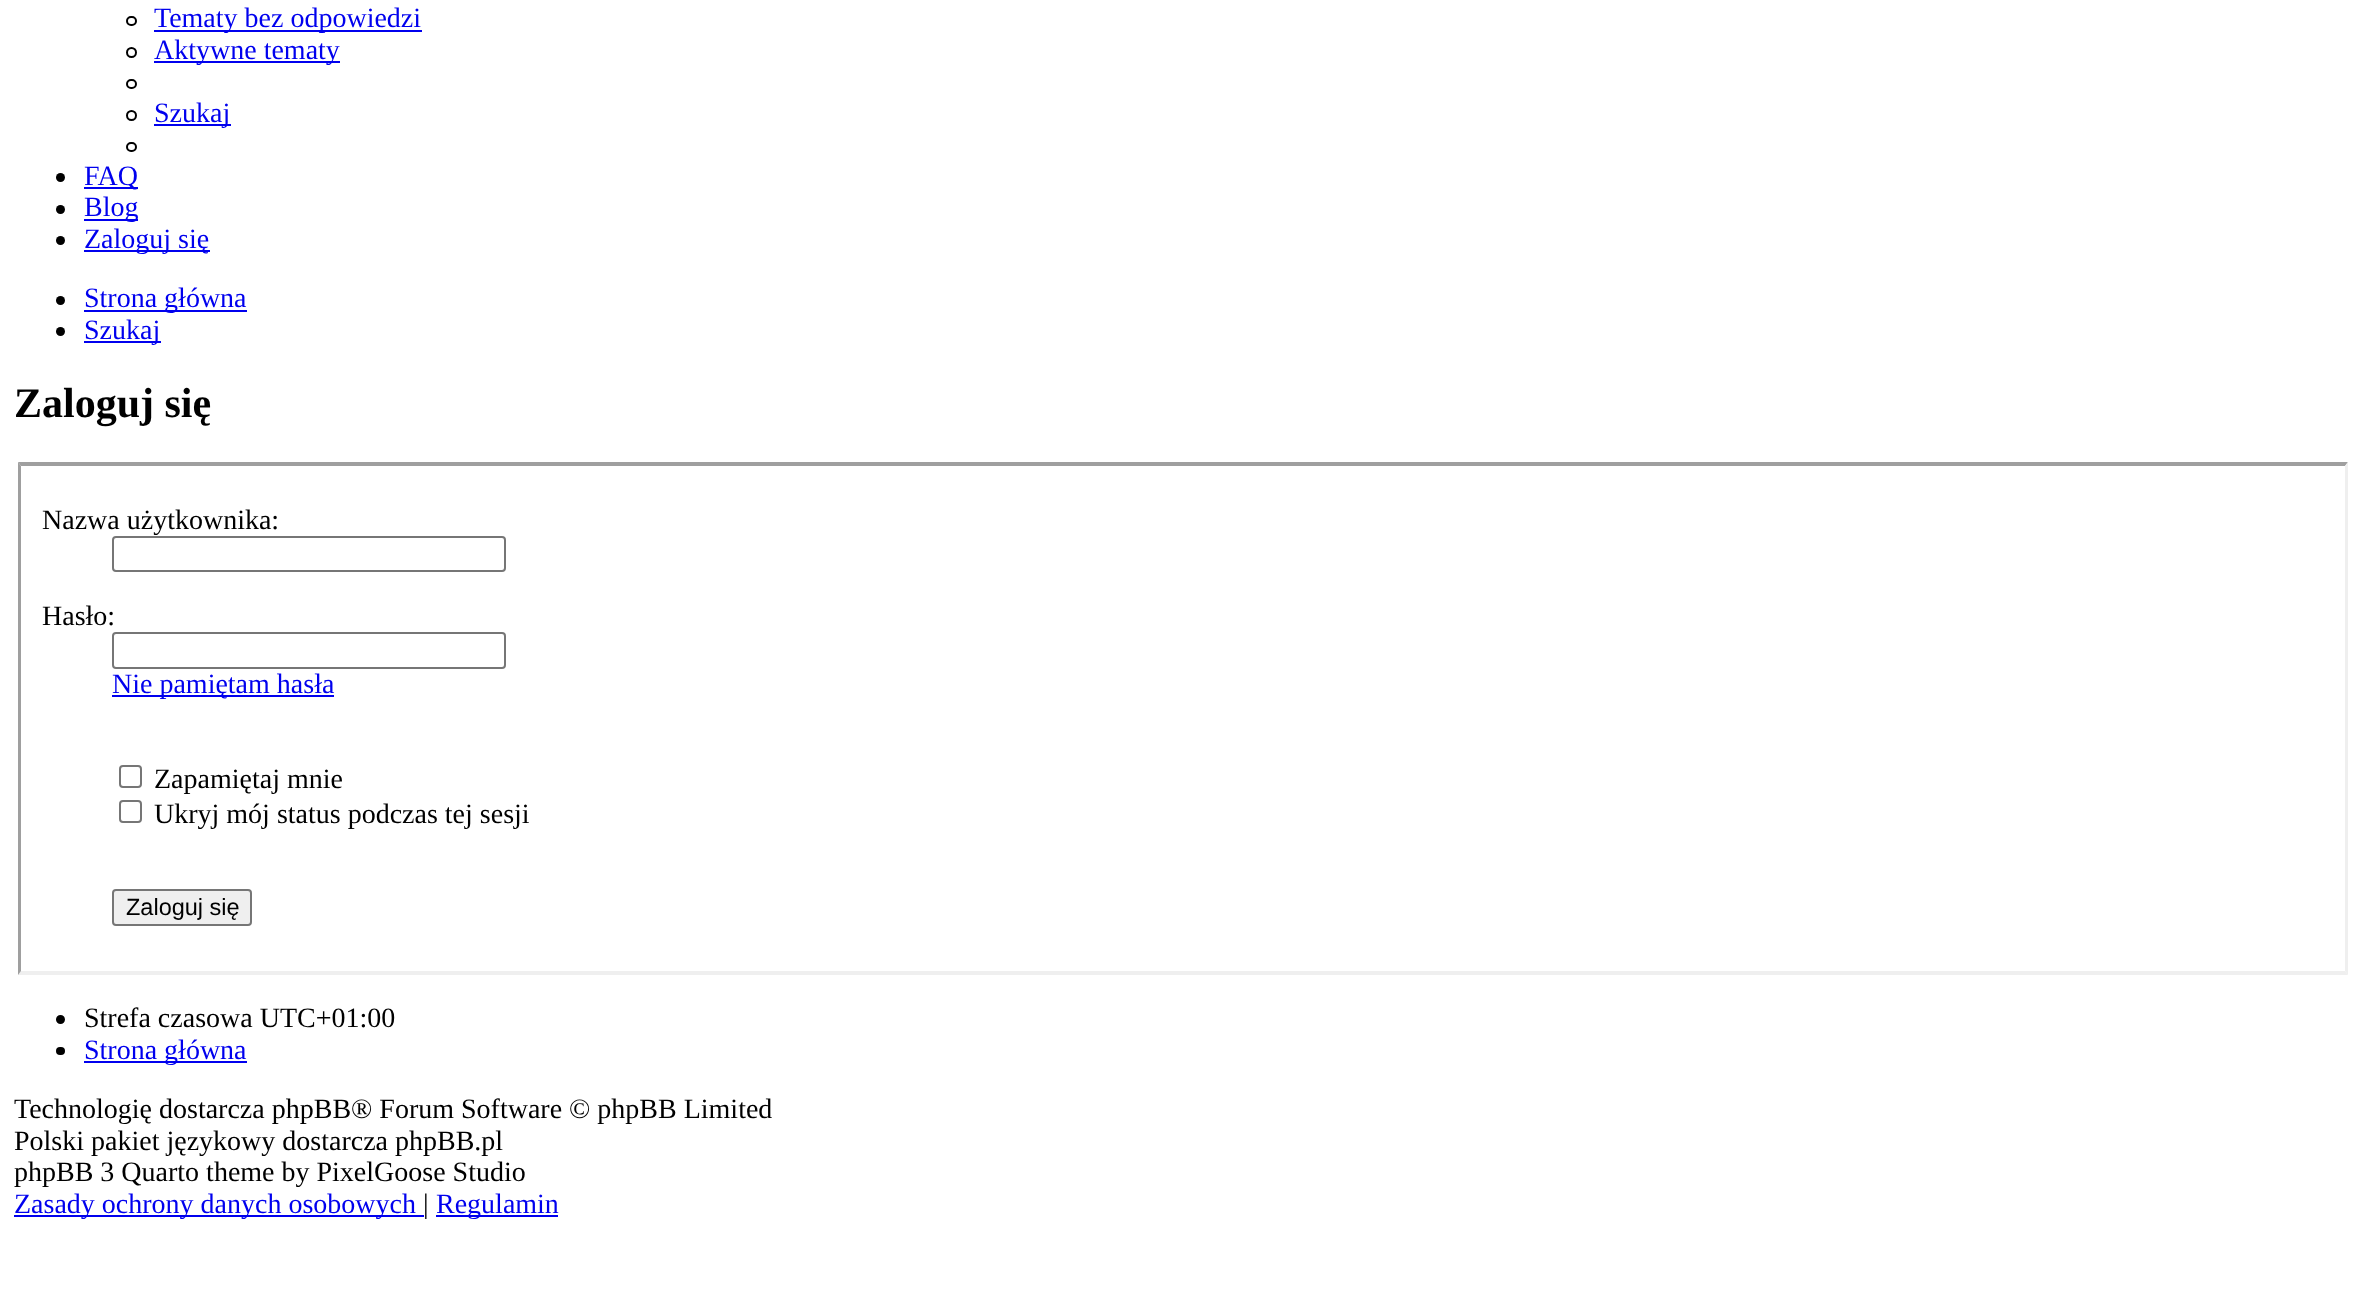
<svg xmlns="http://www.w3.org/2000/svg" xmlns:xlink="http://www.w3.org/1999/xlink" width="2366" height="1301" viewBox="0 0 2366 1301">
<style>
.cls-1{font:28px Liberation Serif;fill:#0000ee}
.cls-2{font:bold 42px Liberation Serif;fill:#000000}
.cls-3{font:28px Liberation Serif;fill:#000000}
.cls-4{font:23.5px Liberation Sans;fill:#000000}
</style>
<rect width="100%" height="100%" fill="#ffffff"/>
<rect fill="none" stroke="#000000" stroke-width="2" x="127" y="17" width="9" height="8" rx="4"/>
<rect fill="#0000ee" x="154" y="30" width="268" height="2"/>
<circle fill="none" stroke="#000000" stroke-width="2" cx="131.5" cy="52.5" r="4.5"/>
<rect fill="#0000ee" x="154" y="61" width="186" height="2"/>
<rect fill="none" stroke="#000000" stroke-width="2" x="127" y="80" width="9" height="8" rx="4"/>
<circle fill="none" stroke="#000000" stroke-width="2" cx="131.5" cy="115.5" r="4.5"/>
<rect fill="#0000ee" x="154" y="124" width="77" height="2"/>
<rect fill="none" stroke="#000000" stroke-width="2" x="127" y="143" width="9" height="8" rx="4"/>
<circle fill="#000000" cx="60.5" cy="177.5" r="4.5"/>
<rect fill="#0000ee" x="84" y="187" width="54" height="2"/>
<circle fill="#000000" cx="60.5" cy="209.5" r="4.5"/>
<rect fill="#0000ee" x="84" y="219" width="54" height="2"/>
<circle fill="#000000" cx="60.5" cy="240.5" r="4.5"/>
<rect fill="#0000ee" x="84" y="250" width="126" height="2"/>
<circle fill="#000000" cx="60.5" cy="300.5" r="4.5"/>
<rect fill="#0000ee" x="84" y="310" width="163" height="2"/>
<circle fill="#000000" cx="60.5" cy="331.5" r="4.5"/>
<rect fill="#0000ee" x="84" y="341" width="77" height="2"/>
<path fill="#9f9f9f" d="M18 462H2348L2345 466H21Z"/>
<path fill="#efefef" d="M2348 462V975L2345 971V466Z"/>
<path fill="#efefef" d="M2348 975H18L21 971H2345Z"/>
<path fill="#9f9f9f" d="M18 975V462L21 466V971Z"/>
<rect fill="none" stroke="#767676" stroke-width="2" x="113" y="537" width="392" height="34" rx="3"/>
<rect fill="none" stroke="#767676" stroke-width="2" x="113" y="633" width="392" height="35" rx="3"/>
<rect fill="#0000ee" x="112" y="695" width="222" height="2"/>
<rect fill="none" stroke="#767676" stroke-width="2" x="120" y="766" width="21" height="21" rx="3"/>
<rect fill="none" stroke="#767676" stroke-width="2" x="120" y="801" width="21" height="21" rx="3"/>
<rect fill="#efefef" stroke="#767676" stroke-width="2" x="113" y="890" width="138" height="35" rx="3"/>
<circle fill="#000000" cx="60.5" cy="1019.5" r="4.5"/>
<rect fill="#000000" x="56" y="1047" width="9" height="8" rx="4"/>
<rect fill="#0000ee" x="84" y="1061" width="163" height="2"/>
<rect fill="#0000ee" x="14" y="1215" width="410" height="2"/>
<rect fill="#0000ee" x="436" y="1215" width="122" height="2"/>
<text class="cls-1"><tspan x="154" y="27">Tematy bez odpowiedzi</tspan><tspan x="154" y="59">Aktywne tematy</tspan></text>
<text class="cls-1" x="154" y="122">Szukaj</text>
<text class="cls-1"><tspan x="84" y="185">FAQ</tspan><tspan x="84" y="216">Blog</tspan><tspan x="84" y="248">Zaloguj się</tspan></text>
<text class="cls-1"><tspan x="84" y="307">Strona główna</tspan><tspan x="84" y="339">Szukaj</tspan></text>
<text class="cls-2" x="14" y="417">Zaloguj się</text>
<text class="cls-3" x="42" y="529">Nazwa użytkownika:</text>
<text class="cls-3" x="42" y="625">Hasło:</text>
<text class="cls-1" x="112" y="693">Nie pamiętam hasła</text>
<text class="cls-3"><tspan x="154" y="788">Zapamiętaj mnie</tspan><tspan x="154" y="823">Ukryj mój status podczas tej sesji</tspan></text>
<text class="cls-4" x="126" y="915">Zaloguj się</text>
<text class="cls-3" x="84" y="1027">Strefa czasowa UTC+01:00</text>
<text class="cls-1" x="84" y="1059">Strona główna</text>
<text class="cls-3"><tspan x="14" y="1118">Technologię dostarcza phpBB® Forum Software © phpBB Limited</tspan><tspan x="14" y="1150">Polski pakiet językowy dostarcza phpBB.pl</tspan><tspan x="14" y="1181">phpBB 3 Quarto theme by PixelGoose Studio</tspan></text>
<text class="cls-1" x="14" y="1213">Zasady ochrony danych osobowych</text>
<text class="cls-3" x="423" y="1213">|</text>
<text class="cls-1" x="436" y="1213">Regulamin</text>
</svg>
